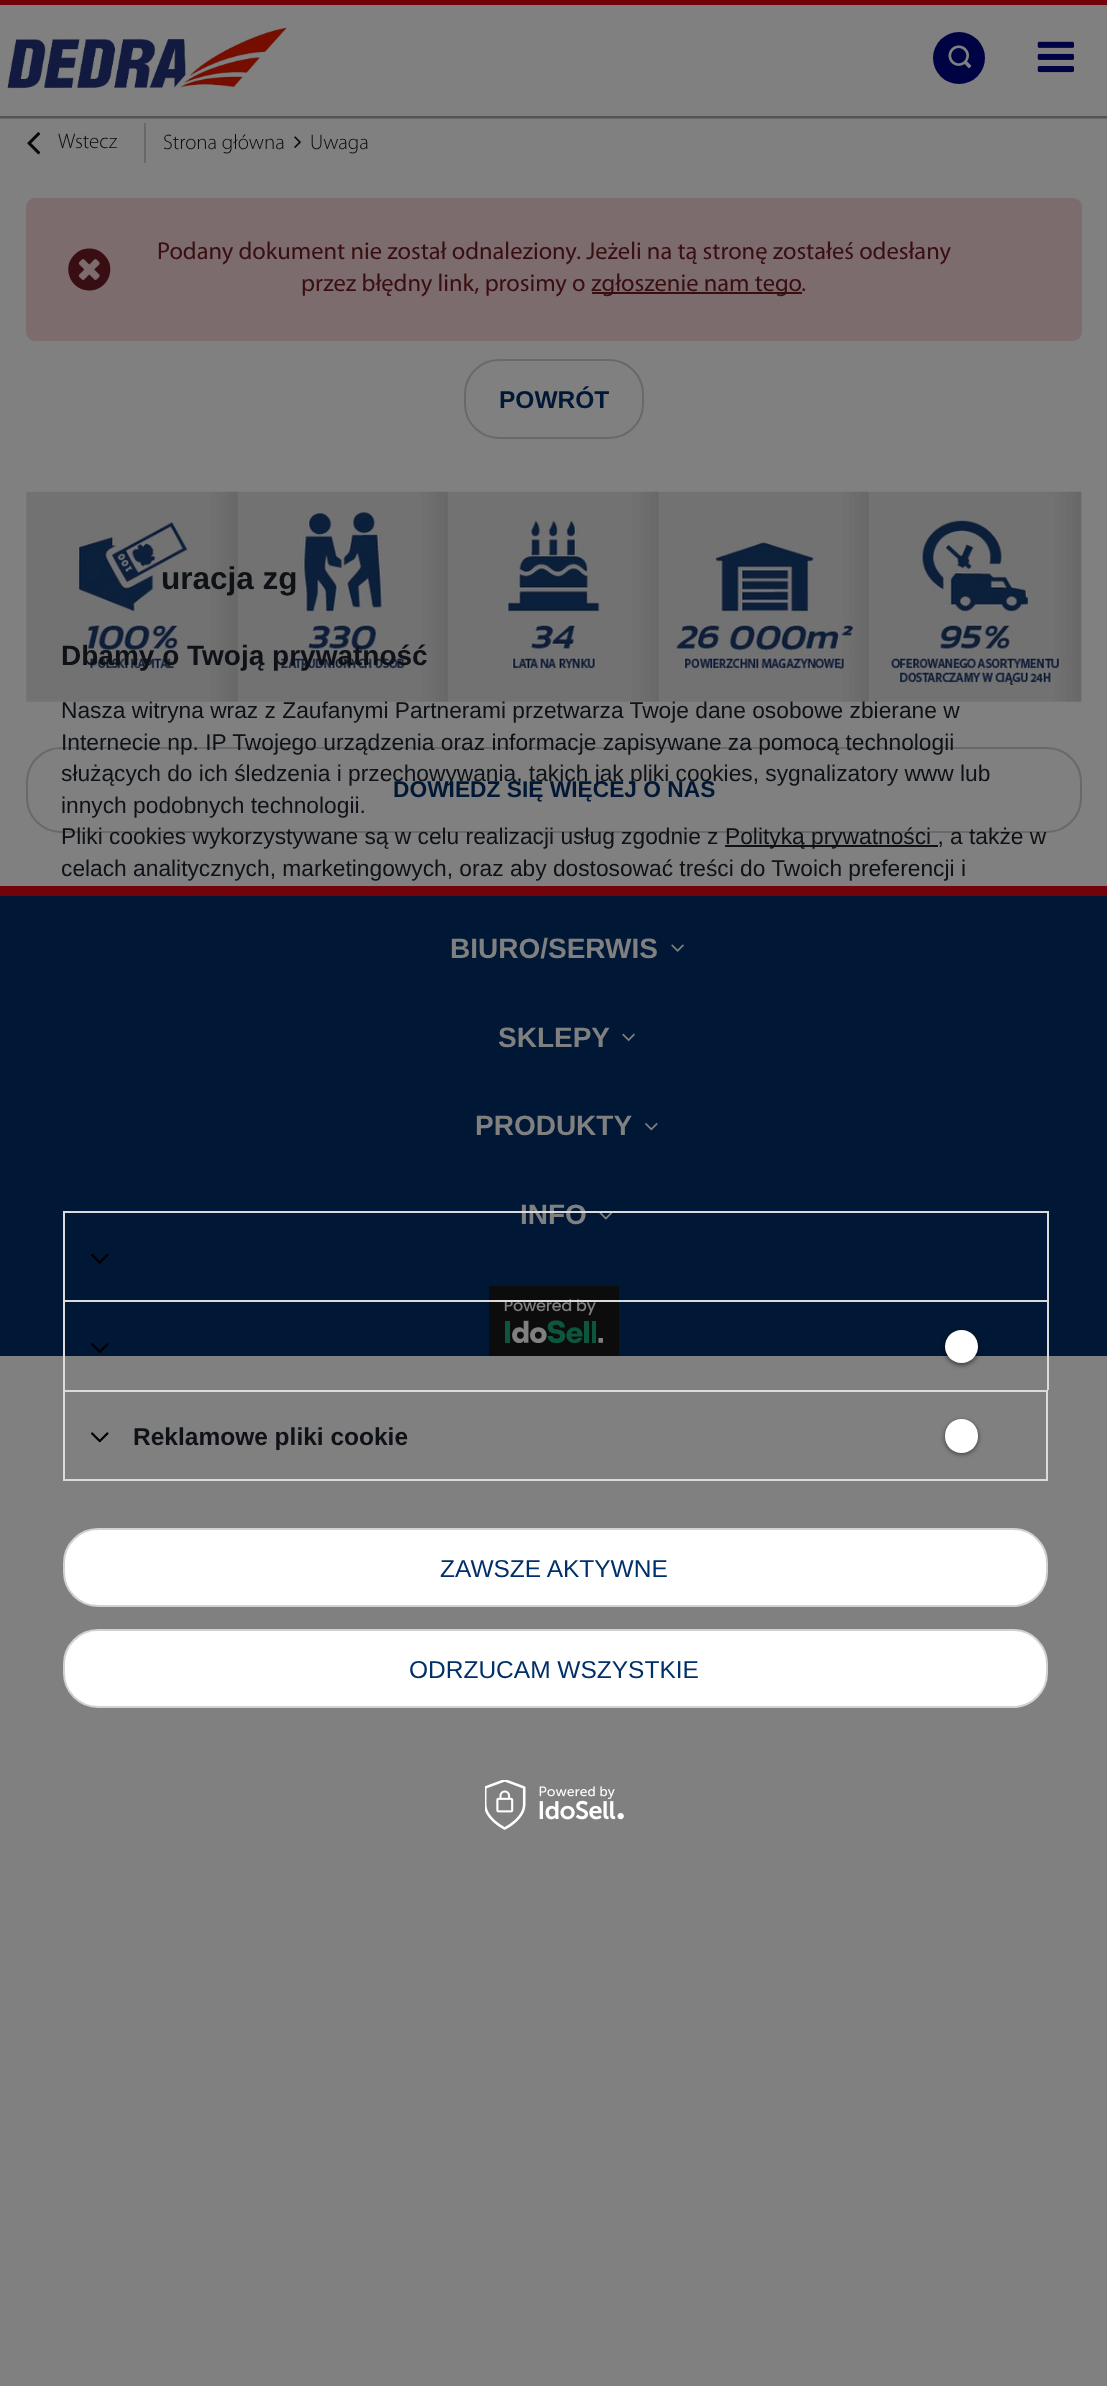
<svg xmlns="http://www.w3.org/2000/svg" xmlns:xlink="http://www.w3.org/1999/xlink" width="1107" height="2386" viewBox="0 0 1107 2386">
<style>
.cls-1{font:300 21px Myriad;fill:#07090b}
.cls-2{font:24.5px Myriad;fill:#390e12}
.cls-3{font:bold 24.5px Liberation Sans;fill:#001835}
.cls-4{font:bold 31.5px Liberation Sans;fill:#0e1116}
.cls-5{font:bold 28px Liberation Sans;fill:#0e1116}
.cls-6{font:22.75px Liberation Sans;fill:#0e1116}
.cls-7{font:bold 24.5px Liberation Sans;fill:#0e1116}
.cls-8{font:24.5px Liberation Sans;fill:#003069}
.cls-9{font:bold 22.75px Liberation Sans;fill:#001835}
.cls-10{font:bold 28px Liberation Sans;fill:#808080}
</style>
<rect width="100%" height="100%" fill="#808080"/>
<rect fill="#696969" x="0" y="118" width="1107" height="1"/>
<rect fill="#72030a" x="0" y="0" width="1107" height="5"/>
<rect fill="#555555" x="0" y="116" width="1107" height="2"/>
<circle fill="#000343" cx="959" cy="58" r="26"/>
<image xlink:href="image0.png" x="948" y="45" width="24" height="24"/>
<image xlink:href="image1.png" x="7" y="27" width="280" height="62"/>
<image xlink:href="image2.png" x="1037" y="41" width="37" height="32"/>
<image xlink:href="image3.png" x="27" y="132" width="14" height="23"/>
<rect fill="#696969" x="144" y="123" width="2" height="40"/>
<image xlink:href="image4.png" x="294" y="136" width="7" height="12"/>
<rect fill="#7c6c6d" x="26" y="198" width="1056" height="143" rx="9"/>
<image xlink:href="image5.png" x="68" y="248" width="43" height="43"/>
<rect fill="#390e12" x="592" y="292" width="210" height="2"/>
<rect fill="none" stroke="#696969" stroke-width="2" x="465" y="360" width="178" height="78" rx="34"/>
<rect fill="#0e1116" x="725" y="845" width="213" height="2"/>
<rect fill="#001835" x="0" y="896" width="1107" height="460"/>
<image xlink:href="image6.png" x="91" y="1253" width="18" height="11"/>
<image xlink:href="image19.png" x="489" y="1286" width="130" height="70"/>
<rect fill="#dbdbdb" x="63" y="1300" width="985" height="2"/>
<rect fill="#dbdbdb" x="1047" y="1300" width="2" height="90"/>
<rect fill="#dbdbdb" x="63" y="1300" width="2" height="90"/>
<image xlink:href="image7.png" x="91" y="1343" width="18" height="10"/>
<rect fill="#000000" fill-opacity="0.56" filter="blur(2.5px)" x="945" y="1332" width="33" height="33" rx="16.5"/>
<circle fill="#ffffff" cx="961.5" cy="1346.5" r="16.5"/>
<rect fill="none" stroke="#dbdbdb" stroke-width="2" x="64" y="1391" width="983" height="89"/>
<image xlink:href="image8.png" x="91" y="1432" width="18" height="11"/>
<rect fill="#000000" fill-opacity="0.56" filter="blur(2.5px)" x="945" y="1421" width="33" height="33" rx="16.5"/>
<rect fill="#ffffff" x="945" y="1419" width="33" height="34" rx="16.5"/>
<rect fill="#ffffff" stroke="#d2d2d2" stroke-width="2" x="64" y="1529" width="983" height="77" rx="34"/>
<rect fill="#ffffff" stroke="#d2d2d2" stroke-width="2" x="64" y="1630" width="983" height="77" rx="34"/>
<image xlink:href="image9.png" x="485" y="1780" width="139" height="50"/>
<image xlink:href="image10.png" x="26" y="491" width="212" height="211"/>
<image xlink:href="image11.png" x="238" y="491" width="210" height="211"/>
<image xlink:href="image12.png" x="448" y="491" width="212" height="211"/>
<image xlink:href="image13.png" x="660" y="491" width="210" height="211"/>
<image xlink:href="image14.png" x="870" y="491" width="212" height="211"/>
<rect fill="none" stroke="#696969" stroke-width="2" x="27" y="748" width="1054" height="84" rx="34"/>
<rect fill="#72030a" x="0" y="886" width="1107" height="10"/>
<image xlink:href="image15.png" x="671" y="944" width="13" height="8"/>
<image xlink:href="image16.png" x="622" y="1033" width="13" height="8"/>
<image xlink:href="image17.png" x="645" y="1123" width="13" height="8"/>
<image xlink:href="image18.png" x="599" y="1213" width="14" height="7"/>
<text class="cls-1" x="58" y="148">Wstecz</text>
<text class="cls-1" x="163" y="149">Strona główna</text>
<text class="cls-1" x="310" y="149">Uwaga</text>
<text class="cls-2" x="157" y="259">Podany dokument nie został odnaleziony. Jeżeli na tą stronę zostałeś odesłany</text>
<text class="cls-2" x="301" y="291">przez błędny link, prosimy o</text>
<text class="cls-2" x="591" y="291">zgłoszenie nam tego</text>
<text class="cls-2" x="801" y="291">.</text>
<text class="cls-3" x="499" y="408">POWRÓT</text>
<text class="cls-4" x="161" y="589">uracja zg</text>
<text class="cls-5" x="61" y="665">Dbamy o Twoją prywatność</text>
<text class="cls-6"><tspan x="61" y="718">Nasza witryna wraz z Zaufanymi Partnerami przetwarza Twoje dane osobowe zbierane w</tspan><tspan x="61" y="750">Internecie np. IP Twojego urządzenia oraz informacje zapisywane za pomocą technologii</tspan><tspan x="61" y="781">służących do ich śledzenia i przechowywania, takich jak pliki cookies, sygnalizatory www lub</tspan><tspan x="61" y="813">innych podobnych technologii.</tspan><tspan x="61" y="844">Pliki cookies wykorzystywane są w celu realizacji usług zgodnie z</tspan></text>
<text class="cls-6" x="725" y="844">Polityką prywatności , a także w</text>
<text class="cls-6" x="61" y="876">celach analitycznych, marketingowych, oraz aby dostosować treści do Twoich preferencji i</text>
<text class="cls-7" x="133" y="1445">Reklamowe pliki cookie</text>
<text class="cls-8" x="440" y="1577">ZAWSZE AKTYWNE</text>
<text class="cls-8" x="409" y="1678">ODRZUCAM WSZYSTKIE</text>
<text class="cls-9" x="393" y="797">DOWIEDZ SIĘ WIĘCEJ O NAS</text>
<text class="cls-10" x="450" y="958">BIURO/SERWIS</text>
<text class="cls-10" x="498" y="1047">SKLEPY</text>
<text class="cls-10" x="475" y="1135">PRODUKTY</text>
<text class="cls-10" x="520" y="1224">INFO</text>
<rect fill="#dbdbdb" x="63" y="1211" width="985" height="2"/>
<rect fill="#dbdbdb" x="63" y="1211" width="2" height="89"/>
<rect fill="#dbdbdb" x="1047" y="1211" width="2" height="89"/>
</svg>
